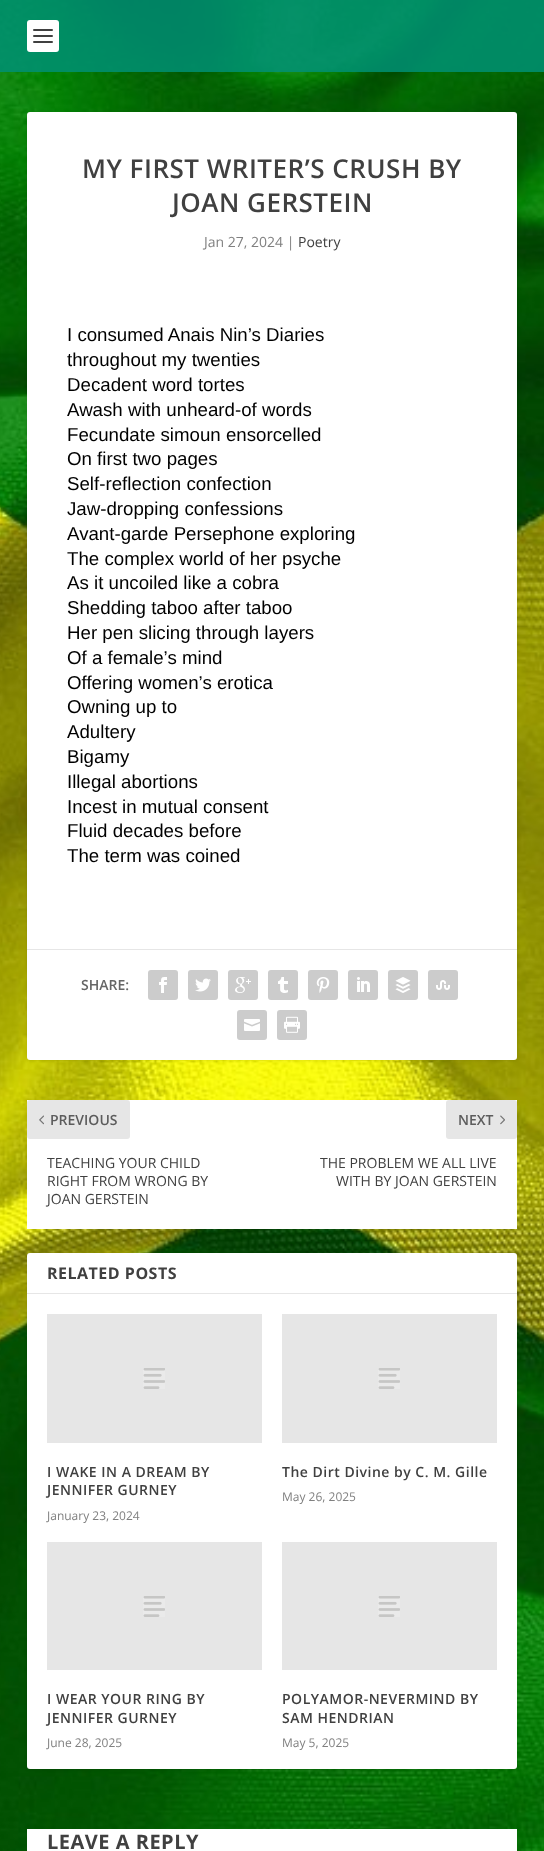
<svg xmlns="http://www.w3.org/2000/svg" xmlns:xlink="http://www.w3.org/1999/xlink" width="544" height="1851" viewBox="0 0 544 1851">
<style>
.cls-1{font:600 26px Open Sans;letter-spacing:0.5px;fill:#404040}
.cls-2{font:14px Open Sans;fill:#808080}
.cls-3{font:14px Open Sans;fill:#404040}
.cls-4{font:18.7px Liberation Sans;fill:#000000}
.cls-5{font:600 14px Open Sans;fill:#666666}
.cls-6{font:600 14px Open Sans;fill:#5c5c5c}
.cls-7{font:bold 16px Open Sans;letter-spacing:0.5px;fill:#404040}
.cls-8{font:600 14px Open Sans;letter-spacing:0.5px;fill:#404040}
.cls-9{font:12px Open Sans;fill:#808080}
.cls-10{font:bold 20px Open Sans;letter-spacing:0.5px;fill:#404040}
</style>
<rect width="100%" height="100%" fill="#ffffff"/>
<image xlink:href="image0.png" x="0" y="0" width="544" height="1851"/>
<rect fill="#009174" fill-opacity="0.85" x="0" y="0" width="544" height="72"/>
<rect fill="#ffffff" x="27" y="20" width="32" height="32" rx="3"/>
<rect fill="#404040" x="33" y="29" width="20" height="2" rx="1"/>
<rect fill="#404040" x="33" y="35" width="20" height="2" rx="1"/>
<rect fill="#404040" x="33" y="41" width="20" height="2" rx="1"/>
<rect fill="#000000" fill-opacity="0.1" filter="blur(1.5px)" x="27" y="113" width="490" height="948" rx="3"/>
<rect fill="#ffffff" x="27" y="112" width="490" height="948" rx="3"/>
<rect fill="#e6e6e6" x="27" y="949" width="490" height="1"/>
<rect fill="#cccccc" x="148" y="970" width="30" height="30" rx="3"/>
<image xlink:href="image1.png" x="159" y="977" width="8" height="16"/>
<rect fill="#cccccc" x="188" y="970" width="30" height="30" rx="3"/>
<image xlink:href="image2.png" x="195" y="978" width="16" height="14"/>
<rect fill="#cccccc" x="228" y="970" width="30" height="30" rx="3"/>
<image xlink:href="image3.png" x="235" y="977" width="16" height="16"/>
<rect fill="#cccccc" x="268" y="970" width="30" height="30" rx="3"/>
<image xlink:href="image4.png" x="278" y="977" width="10" height="16"/>
<rect fill="#cccccc" x="308" y="970" width="30" height="30" rx="3"/>
<image xlink:href="image5.png" x="316" y="977" width="14" height="16"/>
<rect fill="#cccccc" x="348" y="970" width="30" height="30" rx="3"/>
<image xlink:href="image6.png" x="357" y="977" width="13" height="15"/>
<rect fill="#cccccc" x="388" y="970" width="30" height="30" rx="3"/>
<image xlink:href="image7.png" x="395" y="977" width="16" height="16"/>
<rect fill="#cccccc" x="428" y="970" width="30" height="30" rx="3"/>
<image xlink:href="image8.png" x="436" y="980" width="14" height="10"/>
<rect fill="#cccccc" x="237" y="1010" width="30" height="30" rx="3"/>
<image xlink:href="image9.png" x="244" y="1019" width="16" height="12"/>
<rect fill="#cccccc" x="277" y="1010" width="30" height="30" rx="3"/>
<image xlink:href="image10.png" x="284" y="1016" width="16" height="17"/>
<rect fill="#ffffff" x="27" y="1100" width="490" height="129"/>
<rect fill="#e6e6e6" x="27" y="1100" width="103" height="39" rx="3"/>
<image xlink:href="image11.png" x="39" y="1115" width="5" height="10"/>
<rect fill="#e6e6e6" x="446" y="1100" width="71" height="39" rx="3"/>
<image xlink:href="image12.png" x="500" y="1115" width="5" height="10"/>
<rect fill="#000000" fill-opacity="0.1" filter="blur(1.5px)" x="27" y="1254" width="490" height="516" rx="3"/>
<rect fill="#ffffff" x="27" y="1253" width="490" height="516" rx="3"/>
<rect fill="#e6e6e6" x="27" y="1293" width="490" height="1"/>
<rect fill="#e6e6e6" x="47" y="1314" width="215" height="129"/>
<image xlink:href="image13.png" x="143" y="1368" width="22" height="21"/>
<rect fill="#e6e6e6" x="282" y="1314" width="215" height="129"/>
<image xlink:href="image13.png" x="378" y="1368" width="22" height="21"/>
<rect fill="#e6e6e6" x="47" y="1542" width="215" height="128"/>
<image xlink:href="image13.png" x="143" y="1596" width="22" height="21"/>
<rect fill="#e6e6e6" x="282" y="1542" width="215" height="128"/>
<image xlink:href="image13.png" x="378" y="1596" width="22" height="21"/>
<rect fill="#ffffff" x="27" y="1829" width="490" height="22"/>
<text class="cls-1" x="82" y="178">MY FIRST WRITER’S CRUSH BY</text>
<text class="cls-1" x="172" y="212">JOAN GERSTEIN</text>
<text class="cls-2" x="204" y="247">Jan 27, 2024 |</text>
<text class="cls-3" x="298" y="247">Poetry</text>
<text class="cls-4"><tspan x="67" y="341">I consumed Anais Nin’s Diaries</tspan><tspan x="67" y="366">throughout my twenties</tspan><tspan x="67" y="391">Decadent word tortes</tspan><tspan x="67" y="416">Awash with unheard-of words</tspan><tspan x="67" y="441">Fecundate simoun ensorcelled</tspan><tspan x="67" y="465">On first two pages</tspan><tspan x="67" y="490">Self-reflection confection</tspan><tspan x="67" y="515">Jaw-dropping confessions</tspan><tspan x="67" y="540">Avant-garde Persephone exploring</tspan><tspan x="67" y="565">The complex world of her psyche</tspan><tspan x="67" y="589">As it uncoiled like a cobra</tspan><tspan x="67" y="614">Shedding taboo after taboo</tspan><tspan x="67" y="639">Her pen slicing through layers</tspan><tspan x="67" y="664">Of a female’s mind</tspan><tspan x="67" y="689">Offering women’s erotica</tspan><tspan x="67" y="713">Owning up to</tspan><tspan x="67" y="738">Adultery</tspan><tspan x="67" y="763">Bigamy</tspan><tspan x="67" y="788">Illegal abortions</tspan><tspan x="67" y="813">Incest in mutual consent</tspan><tspan x="67" y="837">Fluid decades before</tspan><tspan x="67" y="862">The term was coined</tspan></text>
<text class="cls-5" x="81" y="990">SHARE:</text>
<text class="cls-6" x="50" y="1125">PREVIOUS</text>
<text class="cls-3"><tspan x="47" y="1168">TEACHING YOUR CHILD</tspan><tspan x="47" y="1186">RIGHT FROM WRONG BY</tspan><tspan x="47" y="1204">JOAN GERSTEIN</tspan></text>
<text class="cls-6" x="458" y="1125">NEXT</text>
<text class="cls-3" x="320" y="1168">THE PROBLEM WE ALL LIVE</text>
<text class="cls-3" x="336" y="1186">WITH BY JOAN GERSTEIN</text>
<text class="cls-7" x="47" y="1279">RELATED POSTS</text>
<text class="cls-8"><tspan x="47" y="1477">I WAKE IN A DREAM BY</tspan><tspan x="47" y="1495">JENNIFER GURNEY</tspan></text>
<text class="cls-9" x="47" y="1520">January 23, 2024</text>
<text class="cls-8" x="282" y="1477">The Dirt Divine by C. M. Gille</text>
<text class="cls-9" x="282" y="1501">May 26, 2025</text>
<text class="cls-8"><tspan x="47" y="1704">I WEAR YOUR RING BY</tspan><tspan x="47" y="1723">JENNIFER GURNEY</tspan></text>
<text class="cls-9" x="47" y="1747">June 28, 2025</text>
<text class="cls-8"><tspan x="282" y="1704">POLYAMOR-NEVERMIND BY</tspan><tspan x="282" y="1723">SAM HENDRIAN</tspan></text>
<text class="cls-9" x="282" y="1747">May 5, 2025</text>
<text class="cls-10" x="47" y="1849">LEAVE A REPLY</text>
</svg>
